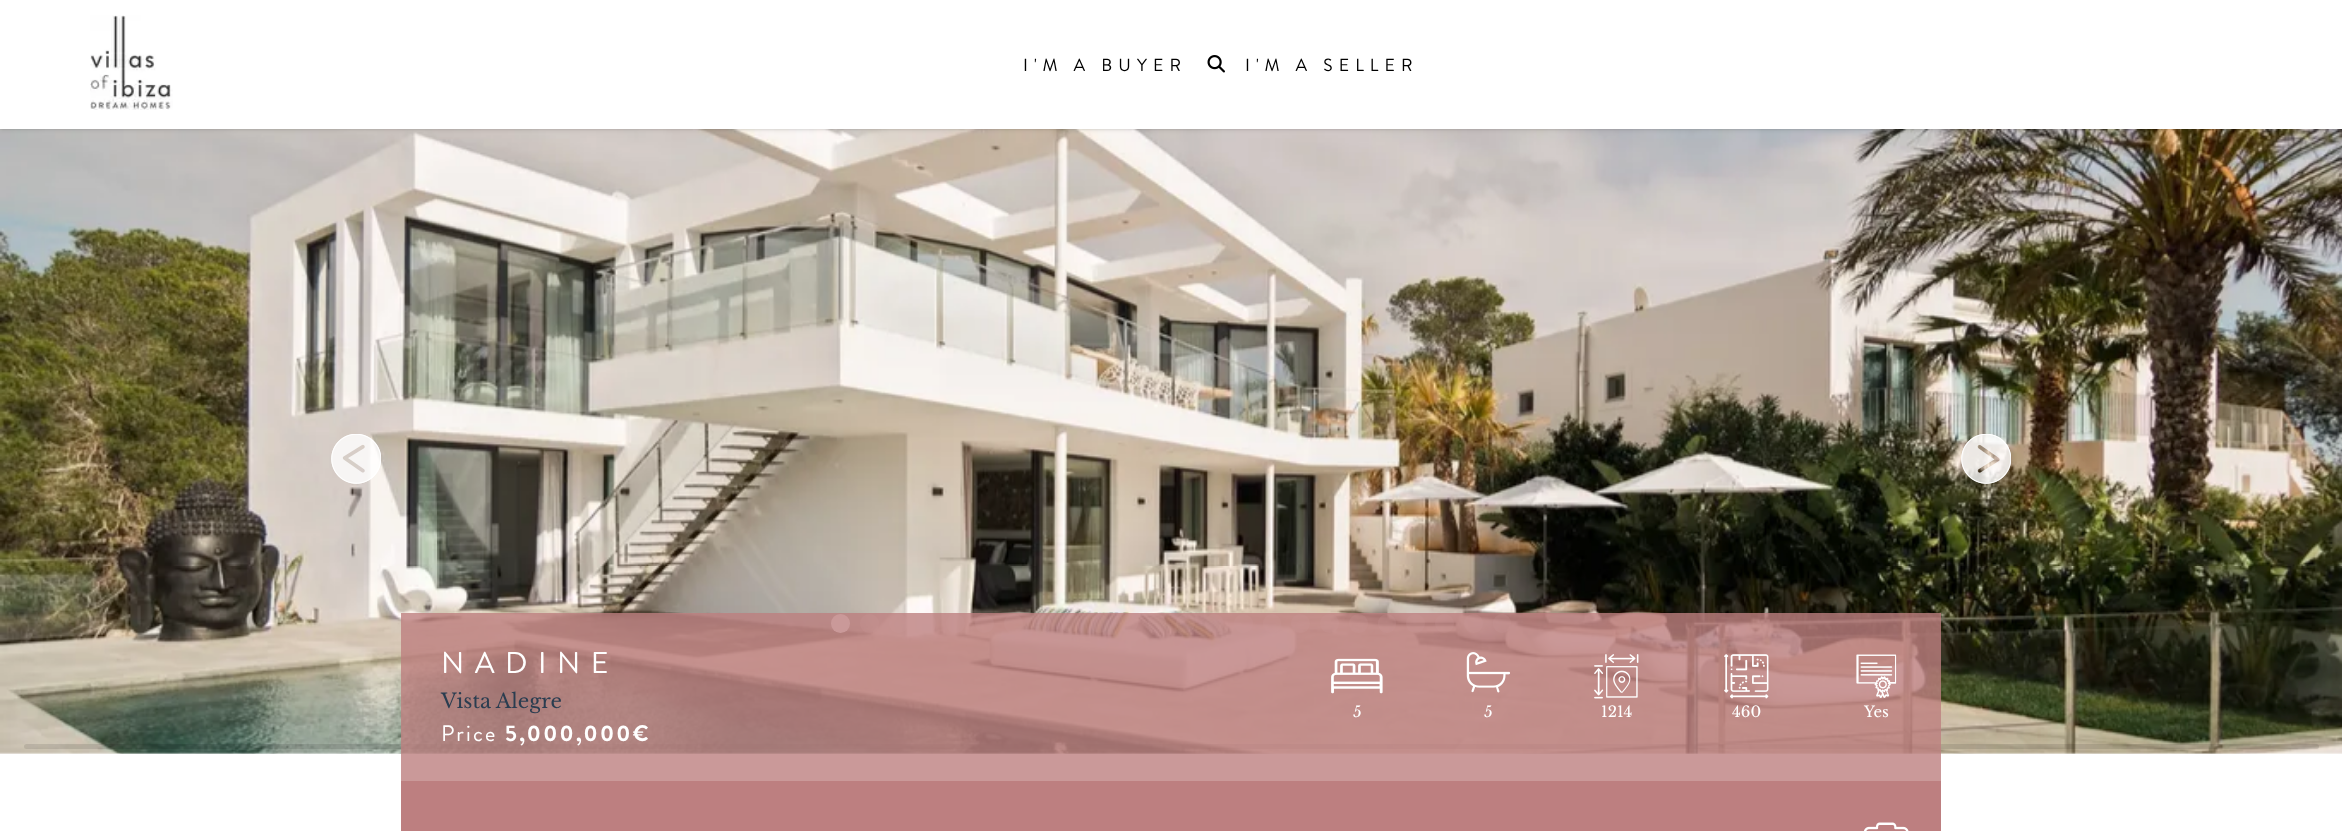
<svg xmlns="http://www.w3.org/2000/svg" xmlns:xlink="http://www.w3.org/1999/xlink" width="2342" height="831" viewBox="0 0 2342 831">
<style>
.cls-1{font:17.5px Brandon Grotesque;letter-spacing:6.1px;fill:#000000}
.cls-2{font:30px Brandon Grotesque;letter-spacing:10.5px;fill:#ffffff}
.cls-3{font:20px Libre Baskerville;fill:#2a3d50}
.cls-4{font:22.5px Brandon Grotesque;letter-spacing:2.25px;fill:#ffffff}
.cls-5{font:bold 22.5px Brandon Grotesque;letter-spacing:2.25px;fill:#ffffff}
.cls-6{font:15px Libre Baskerville;fill:#ffffff}
</style>
<rect width="100%" height="100%" fill="#ffffff"/>
<image xlink:href="image2.png" x="0" y="129" width="2342" height="625"/>
<rect fill="#000000" fill-opacity="0.1" filter="blur(1px)" x="1" y="3" width="2340" height="126"/>
<rect fill="#000000" fill-opacity="0.1" filter="blur(2px)" x="0" y="1" width="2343" height="129"/>
<rect fill="#ffffff" x="0" y="0" width="2342" height="129"/>
<image xlink:href="image0.png" x="90" y="15" width="83" height="95"/>
<image xlink:href="image1.png" x="1207" y="55" width="18" height="18"/>
<rect fill="#000000" fill-opacity="0.1" x="24" y="744" width="2295" height="5" rx="2.5"/>
<image xlink:href="image3.png" x="331" y="434" width="50" height="50"/>
<image xlink:href="image4.png" x="1961" y="434" width="50" height="50"/>
<circle fill="#ffffff" cx="840.5" cy="623.5" r="9.5"/>
<circle fill="#ffffff" fill-opacity="0.2" cx="869.5" cy="623.5" r="9.5"/>
<circle fill="#ffffff" fill-opacity="0.2" cx="898.5" cy="623.5" r="9.5"/>
<rect fill="#ffffff" fill-opacity="0.2" x="918" y="614" width="18" height="19" rx="9"/>
<circle fill="#ffffff" fill-opacity="0.2" cx="955.5" cy="623.5" r="9.5"/>
<circle fill="#ffffff" fill-opacity="0.2" cx="984.5" cy="623.5" r="9.5"/>
<circle fill="#ffffff" fill-opacity="0.2" cx="1013.5" cy="623.5" r="9.5"/>
<rect fill="#ffffff" fill-opacity="0.2" x="1033" y="614" width="18" height="19" rx="9"/>
<circle fill="#ffffff" fill-opacity="0.2" cx="1070.5" cy="623.5" r="9.5"/>
<circle fill="#ffffff" fill-opacity="0.2" cx="1099.5" cy="623.5" r="9.5"/>
<circle fill="#ffffff" fill-opacity="0.2" cx="1128.5" cy="623.5" r="9.5"/>
<rect fill="#ffffff" fill-opacity="0.2" x="1148" y="614" width="18" height="19" rx="9"/>
<circle fill="#ffffff" fill-opacity="0.2" cx="1185.5" cy="623.5" r="9.5"/>
<circle fill="#ffffff" fill-opacity="0.2" cx="1214.5" cy="623.5" r="9.5"/>
<circle fill="#ffffff" fill-opacity="0.2" cx="1243.5" cy="623.5" r="9.5"/>
<rect fill="#ffffff" fill-opacity="0.2" x="1263" y="614" width="18" height="19" rx="9"/>
<circle fill="#ffffff" fill-opacity="0.2" cx="1300.5" cy="623.5" r="9.5"/>
<circle fill="#ffffff" fill-opacity="0.2" cx="1329.5" cy="623.5" r="9.5"/>
<circle fill="#ffffff" fill-opacity="0.2" cx="1358.5" cy="623.5" r="9.5"/>
<rect fill="#ffffff" fill-opacity="0.2" x="1378" y="614" width="18" height="19" rx="9"/>
<circle fill="#ffffff" fill-opacity="0.2" cx="1415.5" cy="623.5" r="9.5"/>
<circle fill="#ffffff" fill-opacity="0.2" cx="1444.5" cy="623.5" r="9.5"/>
<circle fill="#ffffff" fill-opacity="0.2" cx="1473.5" cy="623.5" r="9.5"/>
<rect fill="#ffffff" fill-opacity="0.2" x="1493" y="614" width="18" height="19" rx="9"/>
<rect fill="#bd7f80" fill-opacity="0.8" x="401" y="613" width="1540" height="168"/>
<image xlink:href="image5.png" x="1331" y="658" width="52" height="36"/>
<image xlink:href="image6.png" x="1466" y="652" width="44" height="41"/>
<image xlink:href="image7.png" x="1594" y="654" width="45" height="45"/>
<image xlink:href="image8.png" x="1724" y="654" width="45" height="45"/>
<image xlink:href="image9.png" x="1856" y="654" width="41" height="44"/>
<rect fill="#bd7f80" x="401" y="781" width="1540" height="50"/>
<image xlink:href="image10.png" x="1864" y="822" width="45" height="9"/>
<text class="cls-1" x="1023" y="71">I'M A BUYER</text>
<text class="cls-1" x="1245" y="71">I'M A SELLER</text>
<text class="cls-2" x="441" y="673">NADINE</text>
<text class="cls-3" x="441" y="708">Vista Alegre</text>
<text class="cls-4" x="441" y="741">Price</text>
<text class="cls-5" x="505" y="741">5,000,000€</text>
<text class="cls-6" x="1353" y="717">5</text>
<text class="cls-6" x="1484" y="717">5</text>
<text class="cls-6" x="1601" y="717">1214</text>
<text class="cls-6" x="1732" y="717">460</text>
<text class="cls-6" x="1864" y="717">Yes</text>
</svg>
